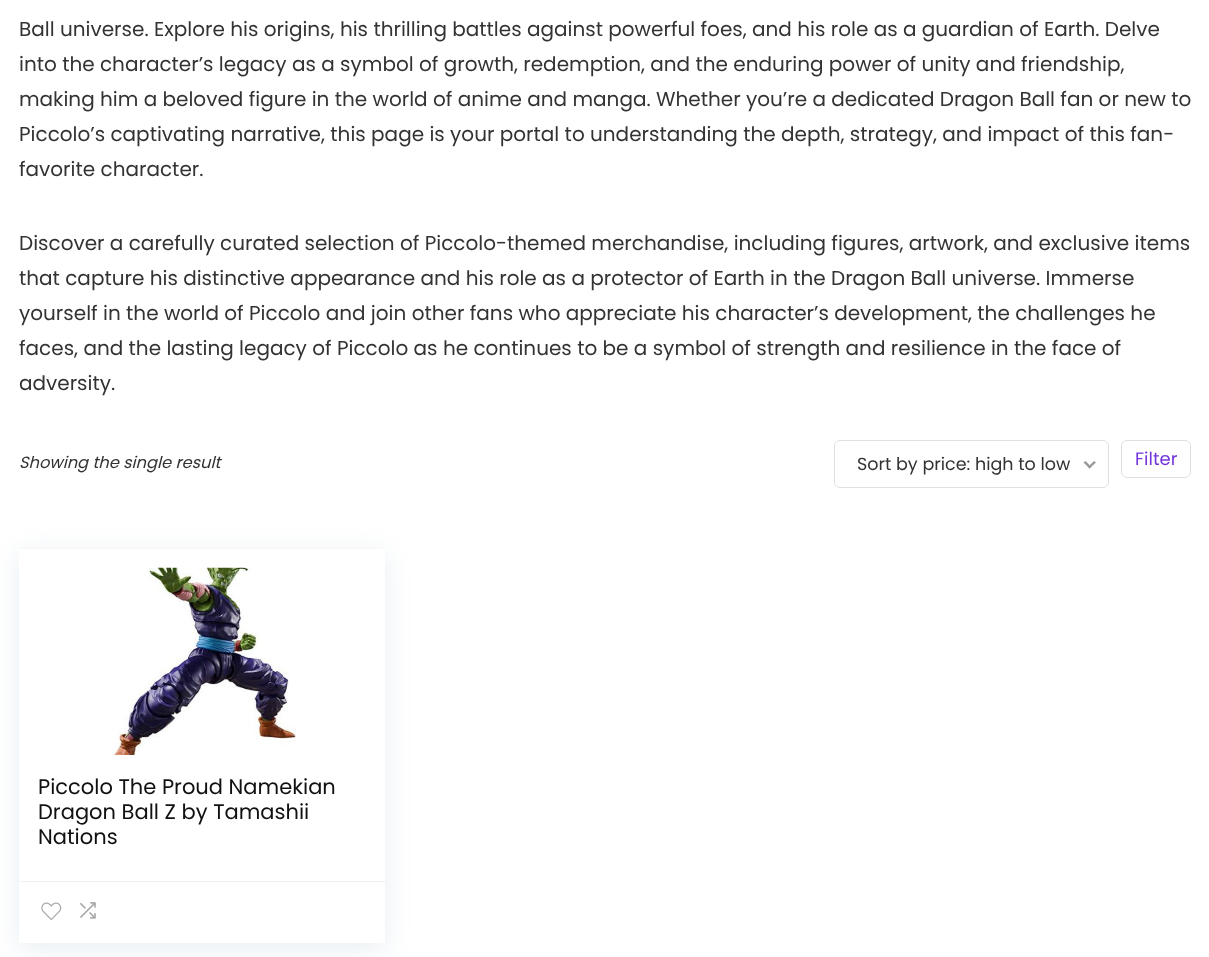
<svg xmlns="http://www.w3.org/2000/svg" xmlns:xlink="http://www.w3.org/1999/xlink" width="1209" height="957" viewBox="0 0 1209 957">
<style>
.cls-1{font:20px Poppins;fill:#333333}
.cls-2{font:italic 16.25px Poppins;fill:#333333}
.cls-3{font:17.5px Poppins;fill:#333333}
.cls-4{font:18px Poppins;fill:#7435db}
.cls-5{font:21px Poppins;fill:#111111}
</style>
<rect width="100%" height="100%" fill="#ffffff"/>
<rect fill="none" stroke="#e1e1e1" x="834.5" y="440.5" width="274" height="47" rx="5.5"/>
<path fill="#999999" d="M1094 461L1096 462.5L1089.5 468.5L1088 467Z"/>
<path fill="#999999" d="M1085.5 461L1091.5 467L1089.5 468.5L1083.5 462.5Z"/>
<rect fill="none" stroke="#dce0e0" x="1121.5" y="440.5" width="69" height="37" rx="5.5"/>
<rect fill="#bccfdb" fill-opacity="0.35" filter="blur(14.5px)" x="19" y="554" width="366" height="395"/>
<rect fill="#ffffff" x="19" y="549" width="366" height="394"/>
<rect fill="#f8f8f8" x="19" y="548" width="366" height="1"/>
<image xlink:href="image0.png" x="112" y="567" width="184" height="188"/>
<rect fill="#f0f0f0" x="19" y="881" width="366" height="1"/>
<image xlink:href="image1.png" x="41" y="902" width="21" height="18"/>
<image xlink:href="image2.png" x="80" y="902" width="16" height="17"/>
<text class="cls-1"><tspan x="19" y="36">Ball universe. Explore his origins, his thrilling battles against powerful foes, and his role as a guardian of Earth. Delve</tspan><tspan x="19" y="71">into the character’s legacy as a symbol of growth, redemption, and the enduring power of unity and friendship,</tspan><tspan x="19" y="106">making him a beloved figure in the world of anime and manga. Whether you’re a dedicated Dragon Ball fan or new to</tspan><tspan x="19" y="141">Piccolo’s captivating narrative, this page is your portal to understanding the depth, strategy, and impact of this fan-</tspan><tspan x="19" y="176">favorite character.</tspan></text>
<text class="cls-1"><tspan x="19" y="250">Discover a carefully curated selection of Piccolo-themed merchandise, including figures, artwork, and exclusive items</tspan><tspan x="19" y="285">that capture his distinctive appearance and his role as a protector of Earth in the Dragon Ball universe. Immerse</tspan><tspan x="19" y="320">yourself in the world of Piccolo and join other fans who appreciate his character’s development, the challenges he</tspan><tspan x="19" y="355">faces, and the lasting legacy of Piccolo as he continues to be a symbol of strength and resilience in the face of</tspan><tspan x="19" y="390">adversity.</tspan></text>
<text class="cls-2" x="19" y="468">Showing the single result</text>
<text class="cls-3" x="857" y="470">Sort by price: high to low</text>
<text class="cls-4" x="1135" y="465">Filter</text>
<text class="cls-5"><tspan x="38" y="794">Piccolo The Proud Namekian</tspan><tspan x="38" y="819">Dragon Ball Z by Tamashii</tspan><tspan x="38" y="844">Nations</tspan></text>
</svg>
